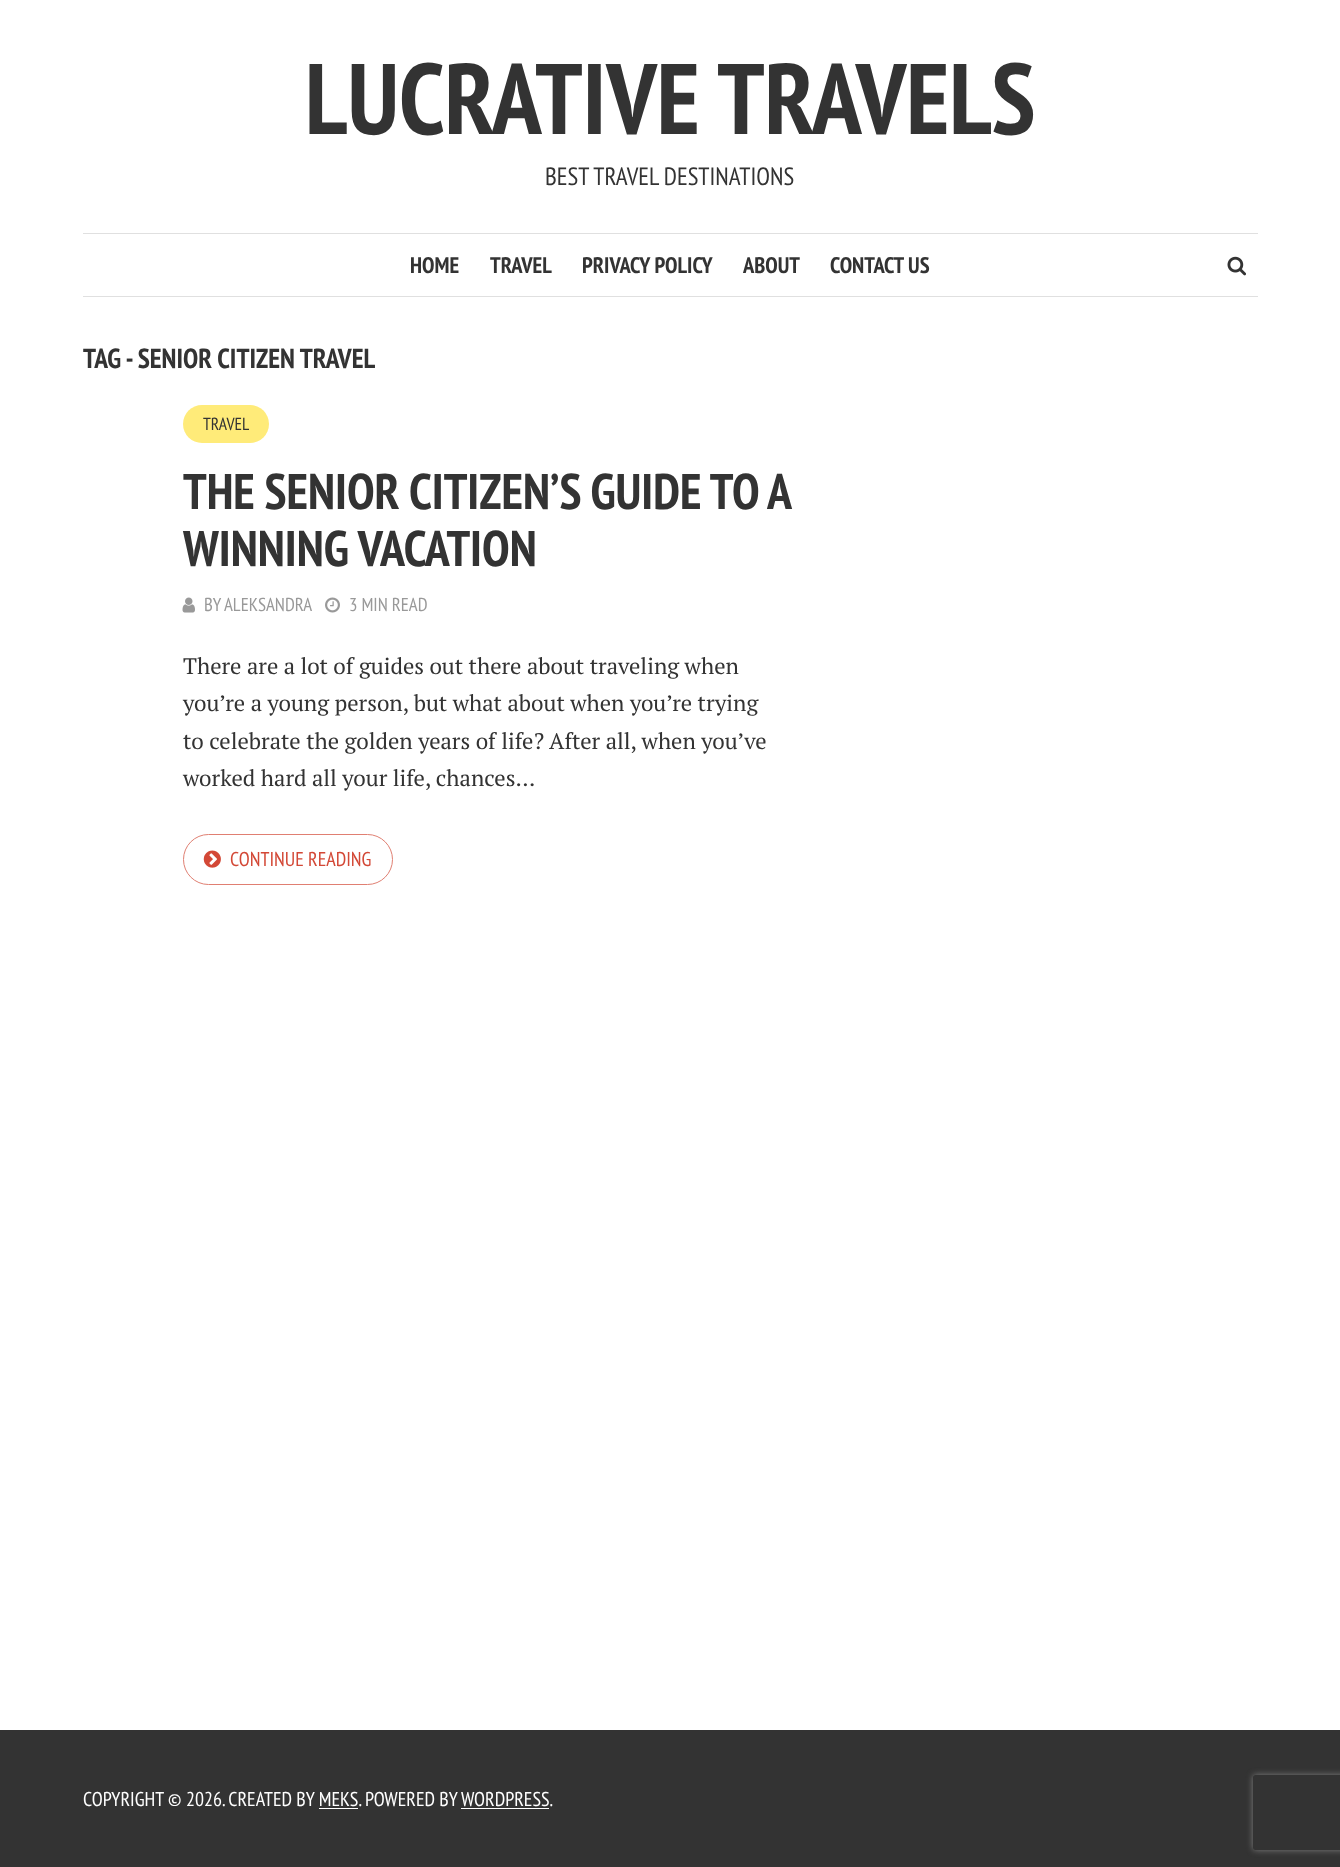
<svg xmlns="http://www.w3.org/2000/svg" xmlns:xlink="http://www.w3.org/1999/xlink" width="1340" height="1867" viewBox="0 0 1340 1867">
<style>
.cls-1{font:bold 100px PT Sans Narrow;fill:#333333}
.cls-2{font:25px PT Sans Narrow;fill:#333333}
.cls-3{font:bold 22.5px PT Sans Narrow;fill:#333333}
.cls-4{font:bold 27.5px PT Sans Narrow;fill:#333333}
.cls-5{font:17.5px PT Sans Narrow;fill:#333333}
.cls-6{font:bold 50px PT Sans Narrow;fill:#333333}
.cls-7{font:18.75px PT Sans Narrow;fill:#999999}
.cls-8{font:22.5px PT Serif;fill:#333333}
.cls-9{font:20px PT Sans Narrow;fill:#d34836}
.cls-10{font:20px PT Sans Narrow;fill:#ffffff}
</style>
<defs>
<clipPath id="clip1"><path d="M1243 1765H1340V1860H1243ZM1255.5 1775H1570.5C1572 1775 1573 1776 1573 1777.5V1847.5C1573 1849 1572 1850 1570.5 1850H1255.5C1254 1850 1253 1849 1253 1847.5V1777.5C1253 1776 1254 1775 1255.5 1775Z" clip-rule="evenodd"/></clipPath>
</defs>
<rect width="100%" height="100%" fill="#ffffff"/>
<rect fill="#e0e0e0" x="83" y="233" width="1175" height="1"/>
<rect fill="#e0e0e0" x="83" y="296" width="1175" height="1"/>
<image xlink:href="image0.png" x="1227" y="256" width="19" height="20"/>
<rect fill="#ffeb79" x="183" y="405" width="86" height="38" rx="19"/>
<image xlink:href="image1.png" x="182" y="597" width="13" height="16"/>
<image xlink:href="image2.png" x="325" y="597" width="15" height="16"/>
<rect fill="none" stroke="#e07f72" x="183.5" y="834.5" width="209" height="50" rx="25"/>
<image xlink:href="image3.png" x="203" y="850" width="18" height="18"/>
<rect fill="#333333" x="0" y="1730" width="1340" height="137"/>
<rect fill="#ffffff" x="461" y="1808" width="88" height="1"/>
<rect fill="#ffffff" x="319" y="1808" width="39" height="1"/>
<g clip-path="url(#clip1)">
<rect fill="#808080" filter="blur(3px)" x="1253" y="1775" width="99" height="75" rx="2.5"/>
</g>
<text class="cls-1" x="305" y="134">LUCRATIVE TRAVELS</text>
<text class="cls-2" x="545" y="185">BEST TRAVEL DESTINATIONS</text>
<text class="cls-3" x="410" y="273">HOME</text>
<text class="cls-3" x="490" y="273">TRAVEL</text>
<text class="cls-3" x="582" y="273">PRIVACY POLICY</text>
<text class="cls-3" x="743" y="273">ABOUT</text>
<text class="cls-3" x="830" y="273">CONTACT US</text>
<text class="cls-4" x="83" y="368">TAG - SENIOR CITIZEN TRAVEL</text>
<text class="cls-5" x="203" y="430">TRAVEL</text>
<text class="cls-6"><tspan x="183" y="509" word-spacing="-0.5">THE SENIOR CITIZEN’S GUIDE TO A</tspan><tspan x="183" y="566">WINNING VACATION</tspan></text>
<text class="cls-7" x="204" y="611">BY</text>
<text class="cls-7" x="224" y="611">ALEKSANDRA</text>
<text class="cls-7" x="349" y="611">3 MIN READ</text>
<text class="cls-8"><tspan x="183" y="674">There are a lot of guides out there about traveling when</tspan><tspan x="183" y="711">you’re a young person, but what about when you’re trying</tspan><tspan x="183" y="749">to celebrate the golden years of life? After all, when you’ve</tspan><tspan x="183" y="786">worked hard all your life, chances...</tspan></text>
<text class="cls-9" x="230" y="866">CONTINUE READING</text>
<text class="cls-10" x="83" y="1806">COPYRIGHT © 2026. CREATED BY MEKS. POWERED BY</text>
<text class="cls-10" x="461" y="1806">WORDPRESS.</text>
</svg>
